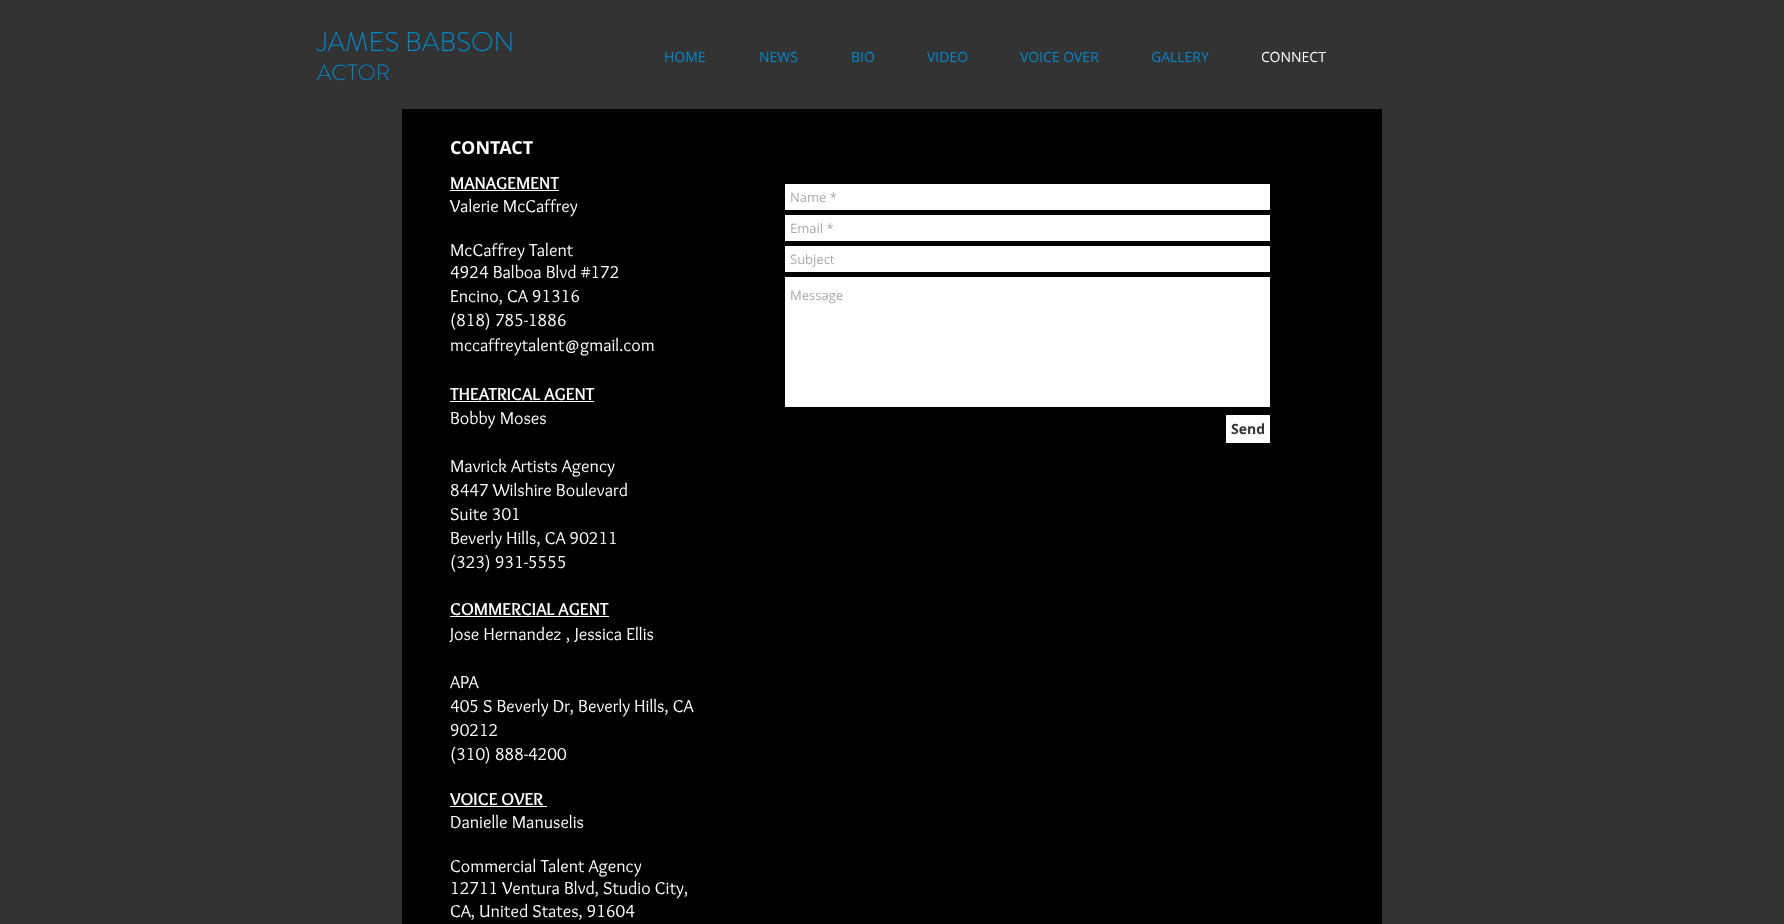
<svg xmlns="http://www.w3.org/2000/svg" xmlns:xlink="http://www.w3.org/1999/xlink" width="1784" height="924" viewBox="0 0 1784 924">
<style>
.cls-1{font:300 27px 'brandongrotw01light';fill:#0088cb}
.cls-2{font:300 22px 'brandongrotw01light';fill:#0088cb}
.cls-3{font:14px Open Sans;fill:#0088cb}
.cls-4{font:14px Open Sans;fill:#ffffff}
.cls-5{font:bold 18px Open Sans;fill:#ffffff}
.cls-6{font:bold 18px Overlock;fill:#ffffff}
.cls-7{font:18px Overlock;fill:#ffffff}
.cls-8{font:13px Open Sans;fill:#a9a9a9}
.cls-9{font:bold 14px Open Sans;fill:#333333}
</style>
<rect width="100%" height="100%" fill="#333333"/>
<rect fill="#000000" x="402" y="109" width="980" height="815"/>
<rect fill="#ffffff" x="450" y="190" width="109" height="1"/>
<rect fill="#ffffff" x="450" y="401" width="144" height="1"/>
<rect fill="#ffffff" x="450" y="616" width="159" height="1"/>
<rect fill="#ffffff" x="450" y="806" width="97" height="1"/>
<rect fill="#ffffff" x="785" y="184" width="485" height="26"/>
<rect fill="#ffffff" x="785" y="215" width="485" height="26"/>
<rect fill="#ffffff" x="785" y="246" width="485" height="26"/>
<rect fill="#ffffff" x="785" y="277" width="485" height="130"/>
<rect fill="#ffffff" x="1226" y="415" width="44" height="28"/>
<text class="cls-1" x="317" y="51">JAMES BABSON</text>
<text class="cls-2" x="317" y="80">ACTOR</text>
<text class="cls-3" x="664" y="62">HOME</text>
<text class="cls-3" x="759" y="62">NEWS</text>
<text class="cls-3" x="851" y="62">BIO</text>
<text class="cls-3" x="927" y="62">VIDEO</text>
<text class="cls-3" x="1020" y="62">VOICE OVER</text>
<text class="cls-3" x="1151" y="62">GALLERY</text>
<text class="cls-4" x="1261" y="62">CONNECT</text>
<text class="cls-5" x="450" y="154">CONTACT</text>
<text class="cls-6" x="450" y="189">MANAGEMENT</text>
<text class="cls-7" x="450" y="212">Valerie McCaffrey</text>
<text class="cls-7"><tspan x="450" y="256">McCaffrey Talent</tspan><tspan x="450" y="278">4924 Balboa Blvd #172</tspan><tspan x="450" y="302">Encino, CA 91316</tspan><tspan x="450" y="326">(818) 785-1886</tspan><tspan x="450" y="351">mccaffreytalent@gmail.com</tspan></text>
<text class="cls-6" x="450" y="400">THEATRICAL AGENT</text>
<text class="cls-7" x="450" y="424">Bobby Moses</text>
<text class="cls-7"><tspan x="450" y="472">Mavrick Artists Agency</tspan><tspan x="450" y="496">8447 Wilshire Boulevard</tspan><tspan x="450" y="520">Suite 301</tspan><tspan x="450" y="544">Beverly Hills, CA 90211</tspan><tspan x="450" y="568">(323) 931-5555</tspan></text>
<text class="cls-6" x="450" y="615">COMMERCIAL AGENT</text>
<text class="cls-7" x="450" y="640">Jose Hernandez , Jessica Ellis</text>
<text class="cls-7"><tspan x="450" y="688">APA</tspan><tspan x="450" y="712">405 S Beverly Dr, Beverly Hills, CA</tspan><tspan x="450" y="736">90212</tspan><tspan x="450" y="760">(310) 888-4200</tspan></text>
<text class="cls-6" x="450" y="805">VOICE OVER</text>
<text class="cls-7" x="450" y="828">Danielle Manuselis</text>
<text class="cls-7"><tspan x="450" y="872">Commercial Talent Agency</tspan><tspan x="450" y="894">12711 Ventura Blvd, Studio City,</tspan><tspan x="450" y="917">CA, United States, 91604</tspan></text>
<text class="cls-8" x="790" y="202">Name *</text>
<text class="cls-8" x="790" y="233">Email *</text>
<text class="cls-8" x="790" y="264">Subject</text>
<text class="cls-8" x="790" y="300">Message</text>
<text class="cls-9" x="1231" y="434">Send</text>
</svg>
